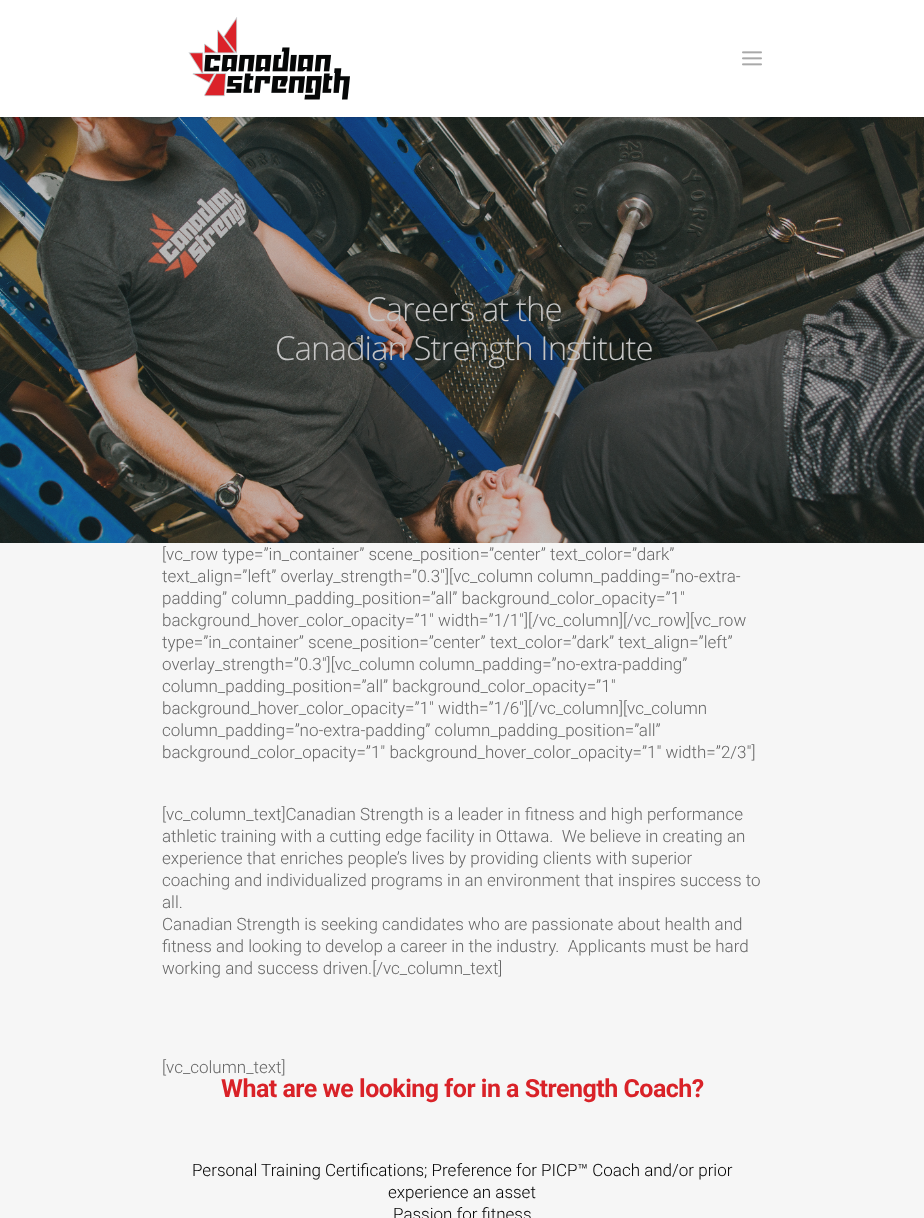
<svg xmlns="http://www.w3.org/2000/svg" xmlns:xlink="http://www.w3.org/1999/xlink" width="924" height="1218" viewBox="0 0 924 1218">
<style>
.cls-1{font:300 33px Open Sans;letter-spacing:-1px;fill:#c4c4c4}
.cls-2{font:300 17px Roboto;fill:#676767}
.cls-3{font:bold 25px Roboto;letter-spacing:-0.5px;fill:#d92228}
.cls-4{font:300 17px Roboto;fill:#000000}
</style>
<rect width="100%" height="100%" fill="#ffffff"/>
<image xlink:href="image3.png" x="0" y="117" width="924" height="426"/>
<rect fill="#f6f6f6" x="0" y="543" width="924" height="675"/>
<text class="cls-1" x="366" y="321">Careers at the</text>
<text class="cls-1" x="275" y="360">Canadian Strength Institute</text>
<image xlink:href="image2.png" x="0" y="117" width="924" height="426"/>
<rect fill="#000000" fill-opacity="0.22" filter="blur(1.5px)" x="0" y="0" width="924" height="117"/>
<rect fill="#ffffff" x="0" y="0" width="924" height="117"/>
<image xlink:href="image1.png" x="742" y="51" width="20" height="15"/>
<image xlink:href="image0.png" x="188" y="17" width="162" height="83"/>
<text class="cls-2"><tspan x="162" y="560">[vc_row type=”in_container” scene_position=”center” text_color=”dark”</tspan><tspan x="162" y="582">text_align=”left” overlay_strength=”0.3″][vc_column column_padding=”no-extra-</tspan><tspan x="162" y="604">padding” column_padding_position=”all” background_color_opacity=”1″</tspan><tspan x="162" y="626">background_hover_color_opacity=”1″ width=”1/1″][/vc_column][/vc_row][vc_row</tspan><tspan x="162" y="648">type=”in_container” scene_position=”center” text_color=”dark” text_align=”left”</tspan><tspan x="162" y="670">overlay_strength=”0.3″][vc_column column_padding=”no-extra-padding”</tspan><tspan x="162" y="692">column_padding_position=”all” background_color_opacity=”1″</tspan><tspan x="162" y="714">background_hover_color_opacity=”1″ width=”1/6″][/vc_column][vc_column</tspan><tspan x="162" y="736">column_padding=”no-extra-padding” column_padding_position=”all”</tspan><tspan x="162" y="758">background_color_opacity=”1″ background_hover_color_opacity=”1″ width=”2/3″]</tspan></text>
<text class="cls-2" xml:space="preserve"><tspan x="162" y="820">[vc_column_text]Canadian Strength is a leader in fitness and high performance</tspan><tspan x="162" y="842">athletic training with a cutting edge facility in Ottawa.  We believe in creating an</tspan><tspan x="162" y="864">experience that enriches people’s lives by providing clients with superior</tspan><tspan x="162" y="886">coaching and individualized programs in an environment that inspires success to</tspan><tspan x="162" y="908">all.</tspan><tspan x="162" y="930">Canadian Strength is seeking candidates who are passionate about health and</tspan><tspan x="162" y="952">fitness and looking to develop a career in the industry.  Applicants must be hard</tspan><tspan x="162" y="974">working and success driven.[/vc_column_text]</tspan></text>
<text class="cls-2" x="162" y="1073">[vc_column_text]</text>
<text class="cls-3" x="221" y="1097">What are we looking for in a Strength Coach?</text>
<text class="cls-4" x="192" y="1176">Personal Training Certifications; Preference for PICP™ Coach and/or prior</text>
<text class="cls-4" x="388" y="1198">experience an asset</text>
<text class="cls-4" x="393" y="1220">Passion for fitness</text>
</svg>
